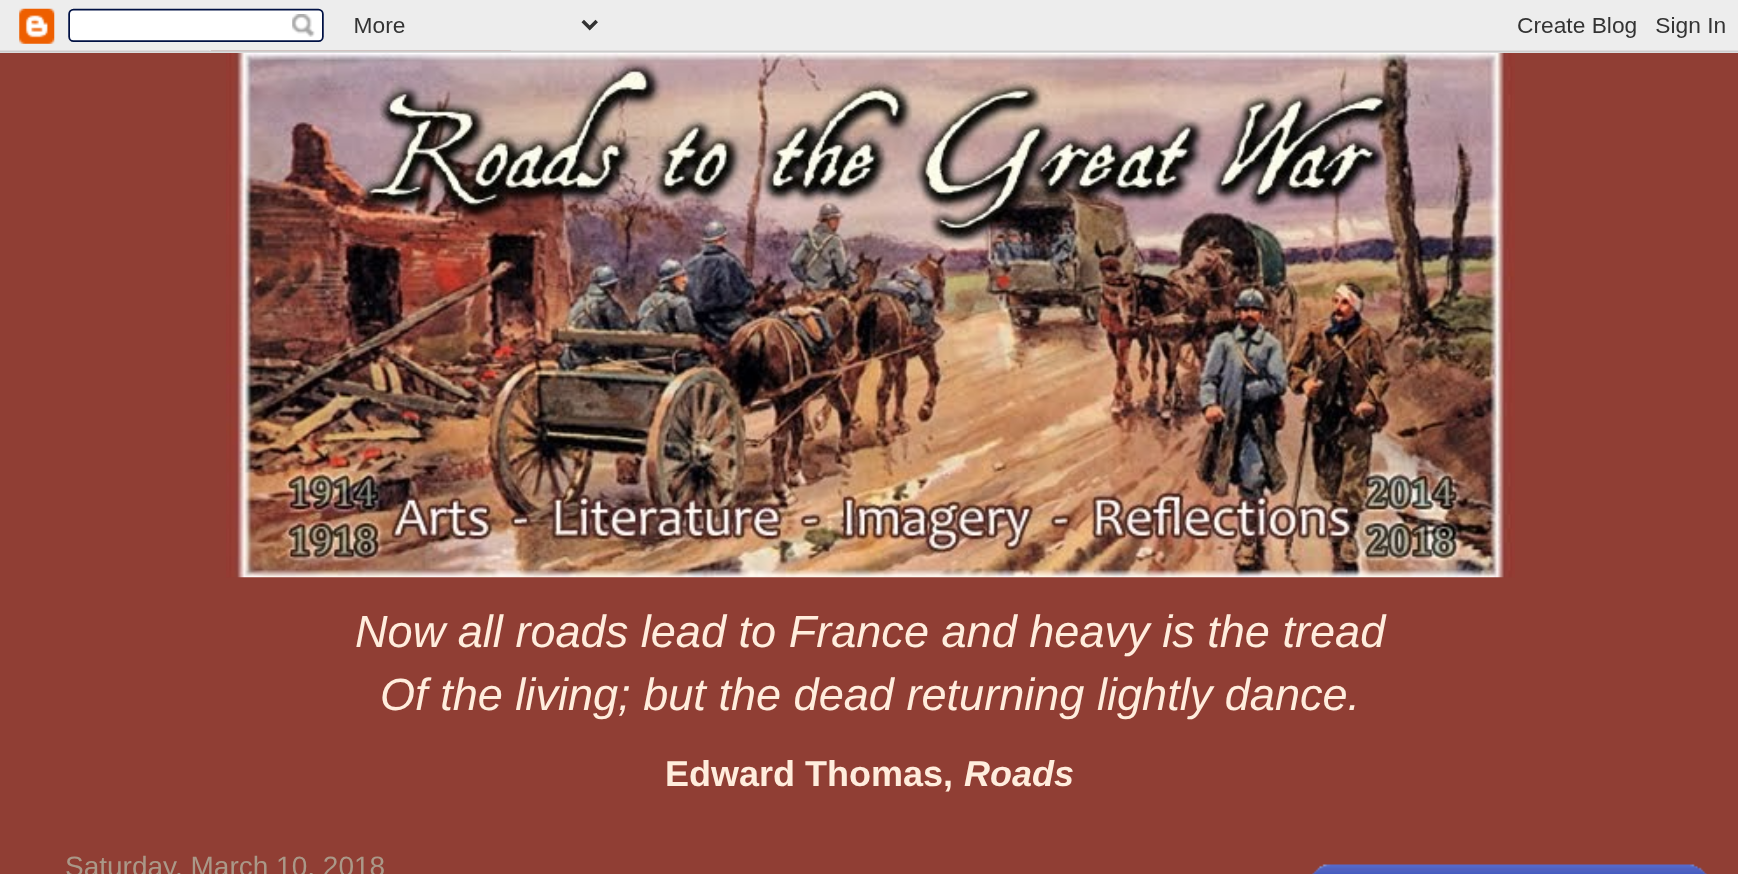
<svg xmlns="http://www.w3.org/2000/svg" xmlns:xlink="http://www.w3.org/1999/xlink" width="1738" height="874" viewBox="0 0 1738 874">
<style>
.cls-1{font:italic 45.1px Liberation Sans;fill:#ffeddd}
.cls-2{font:bold 36px Liberation Sans;fill:#ffeddd}
.cls-3{font:italic bold 36px Liberation Sans;fill:#ffeddd}
.cls-4{font:28px Liberation Sans;fill:#aa9888}
</style>
<rect width="100%" height="100%" fill="#903e34"/>
<image xlink:href="image0.png" x="0" y="0" width="1738" height="53"/>
<image xlink:href="image1.png" x="226" y="53" width="1289" height="525"/>
<image xlink:href="image2.png" x="1312" y="864" width="395" height="10"/>
<text class="cls-1" x="355" y="647">Now all roads lead to France and heavy is the tread</text>
<text class="cls-1" x="380" y="710">Of the living; but the dead returning lightly dance.</text>
<text class="cls-2" x="665" y="786">Edward Thomas,</text>
<text class="cls-3" x="964" y="786">Roads</text>
<text class="cls-4" x="65" y="876">Saturday, March 10, 2018</text>
</svg>
